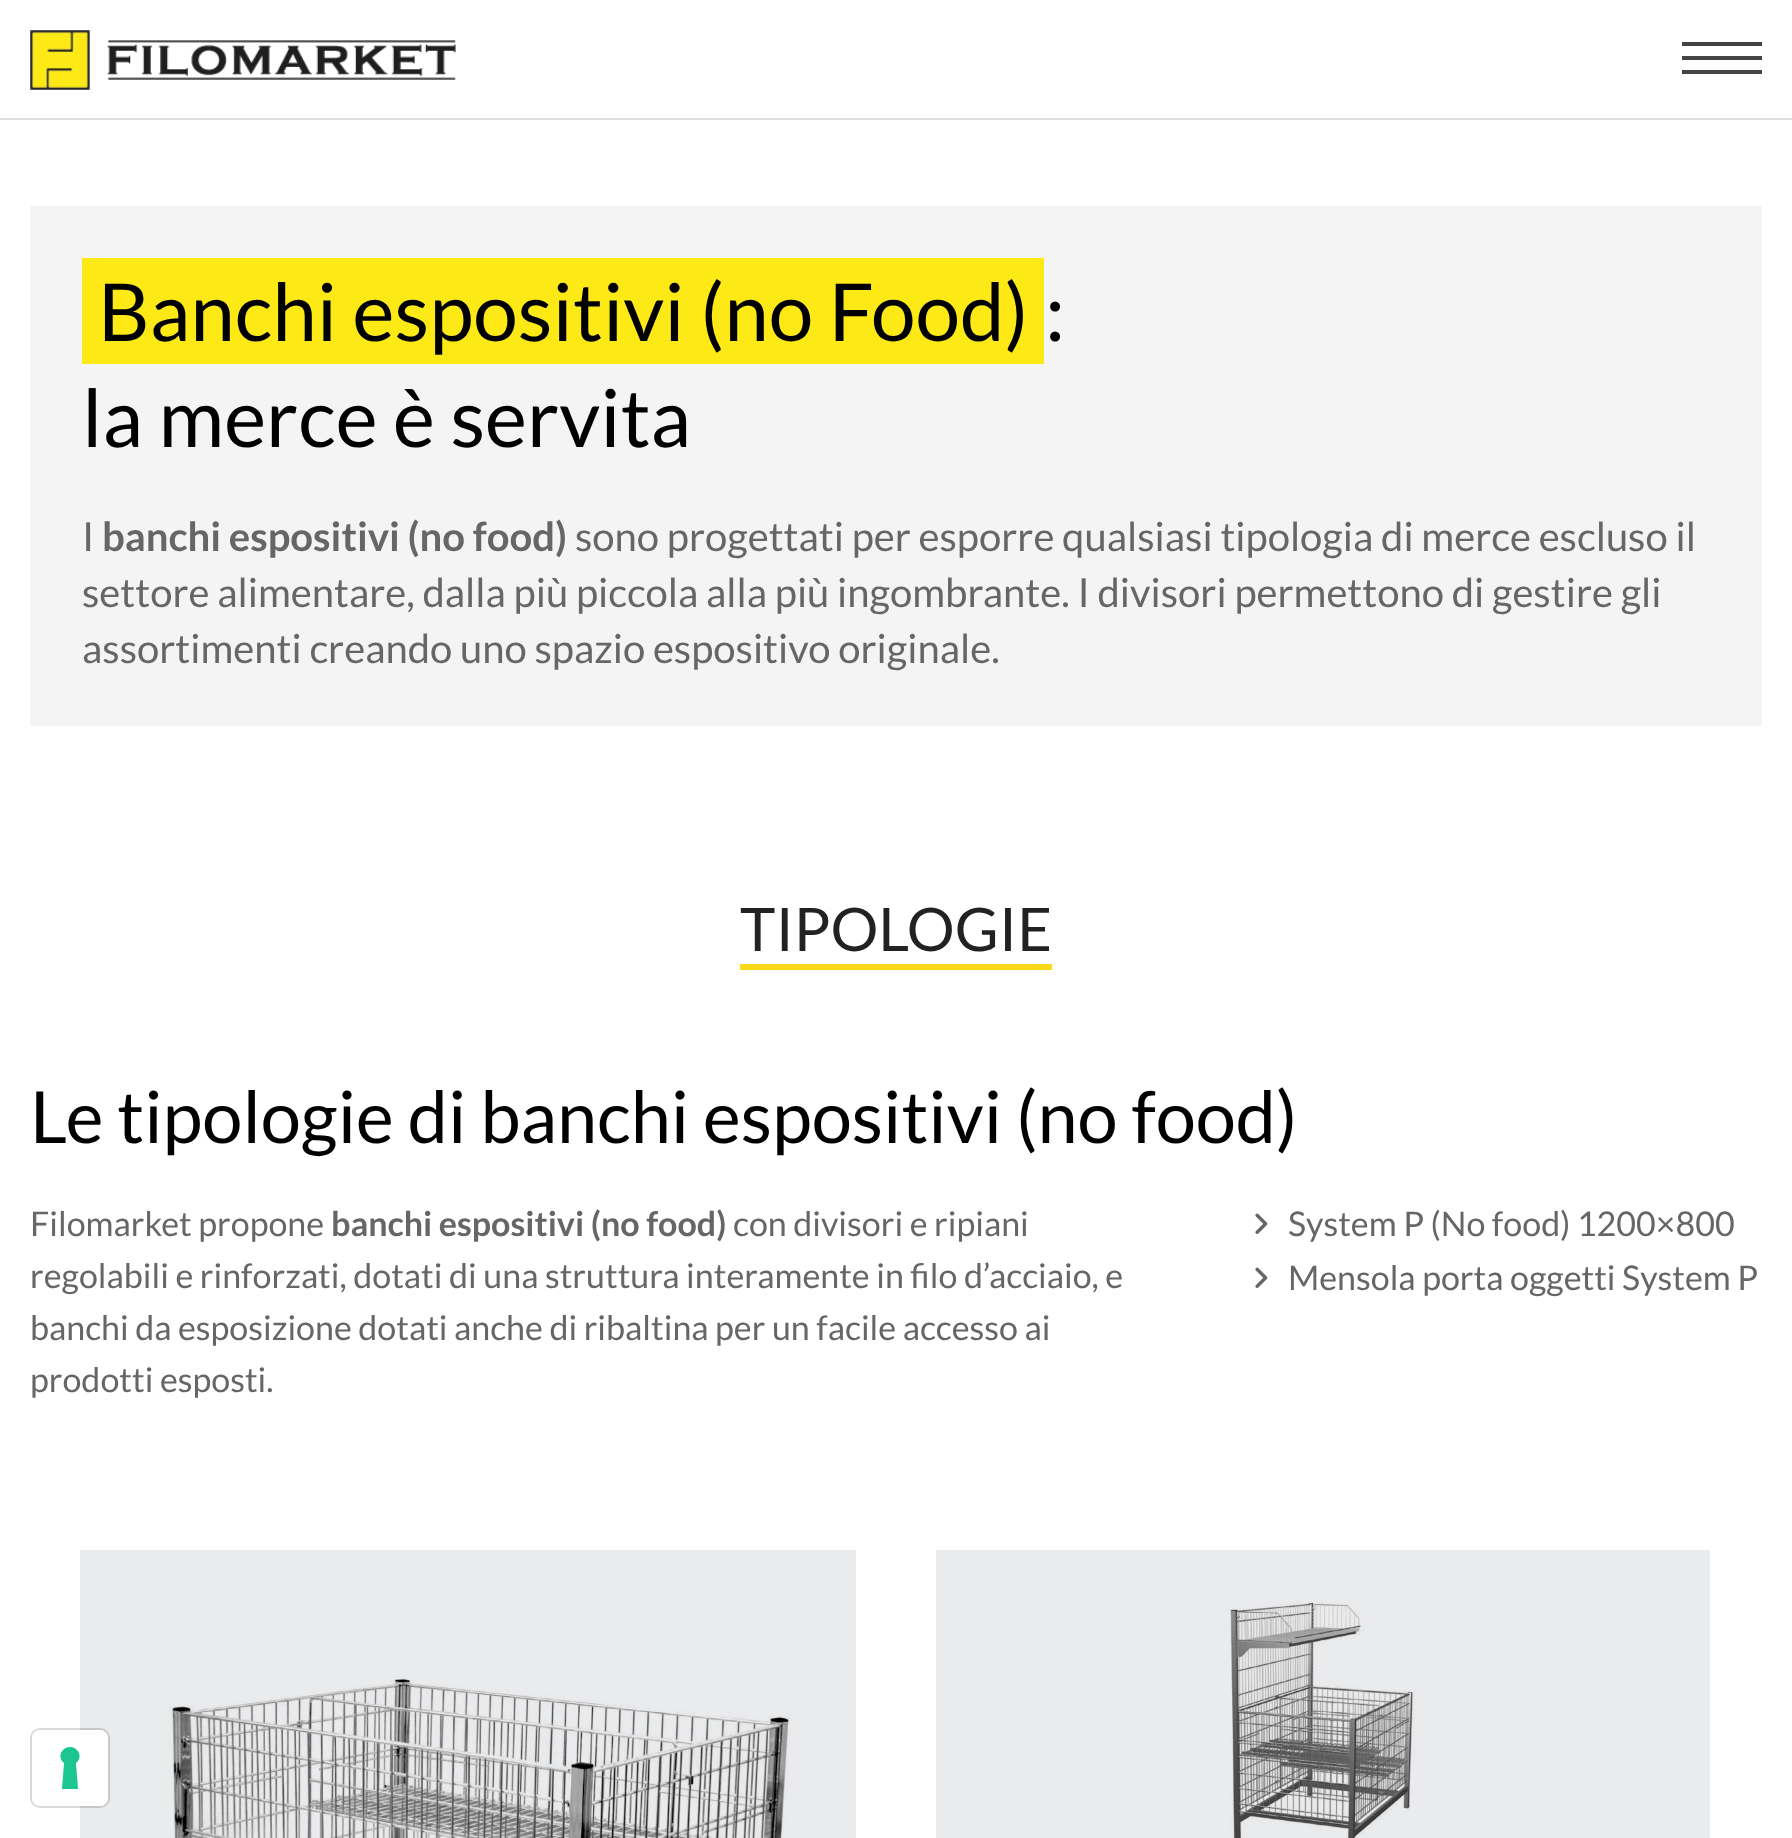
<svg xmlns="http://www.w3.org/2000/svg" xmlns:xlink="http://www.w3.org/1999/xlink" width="1792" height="1838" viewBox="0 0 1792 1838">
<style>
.cls-1{font:80px Lato;fill:#000000}
.cls-2{font:40px Lato;fill:#666666}
.cls-3{font:bold 40px Lato;fill:#666666}
.cls-4{font:60px Lato;fill:#222221}
.cls-5{font:72px Lato;fill:#000000}
.cls-6{font:34px Lato;fill:#666666}
.cls-7{font:bold 34px Lato;fill:#666666}
</style>
<rect width="100%" height="100%" fill="#ffffff"/>
<rect fill="#e0e0e0" x="0" y="118" width="1792" height="2"/>
<image xlink:href="image0.png" x="30" y="30" width="426" height="60"/>
<rect fill="#444444" x="1682" y="56" width="80" height="4"/>
<rect fill="#444444" x="1682" y="42" width="80" height="4"/>
<rect fill="#444444" x="1682" y="70" width="80" height="4"/>
<rect fill="#f4f4f4" x="30" y="206" width="1732" height="520"/>
<rect fill="#fce916" x="82" y="258" width="962" height="106"/>
<rect fill="#f8d819" x="740" y="964" width="312" height="6"/>
<image xlink:href="image1.png" x="1255" y="1213" width="13" height="21"/>
<image xlink:href="image1.png" x="1255" y="1267" width="13" height="21"/>
<image xlink:href="image2.png" x="80" y="1550" width="776" height="288"/>
<image xlink:href="image3.png" x="936" y="1550" width="774" height="288"/>
<rect fill="none" stroke="#000000" stroke-opacity="0.15" stroke-width="2" x="31" y="1729" width="78" height="78" rx="9"/>
<rect fill="#ffffff" x="32" y="1730" width="76" height="76" rx="8"/>
<path fill="#1cc691" fill-rule="evenodd" d="M70 1747C79 1747 83 1758 76 1763L78 1789H62L64 1763C57 1758 61 1747 70 1747Z"/>
<text class="cls-1" x="98" y="341">Banchi espositivi (no Food)</text>
<text class="cls-1" x="1045" y="341">:</text>
<text class="cls-1" x="82" y="447">la merce è servita</text>
<text class="cls-2" x="82" y="551">I</text>
<text class="cls-3" x="102" y="551">banchi espositivi (no food)</text>
<text class="cls-2" x="575" y="551">sono progettati per esporre qualsiasi tipologia di merce escluso il</text>
<text class="cls-2"><tspan x="82" y="607">settore alimentare, dalla più piccola alla più ingombrante. I divisori permettono di gestire gli</tspan><tspan x="82" y="663">assortimenti creando uno spazio espositivo originale.</tspan></text>
<text class="cls-4" x="740" y="951">TIPOLOGIE</text>
<text class="cls-5" x="30" y="1143">Le tipologie di banchi espositivi (no food)</text>
<text class="cls-6" x="30" y="1236">Filomarket propone</text>
<text class="cls-7" x="331" y="1236">banchi espositivi (no food)</text>
<text class="cls-6" x="733" y="1236">con divisori e ripiani</text>
<text class="cls-6"><tspan x="30" y="1288">regolabili e rinforzati, dotati di una struttura interamente in filo d’acciaio, e</tspan><tspan x="30" y="1340">banchi da esposizione dotati anche di ribaltina per un facile accesso ai</tspan><tspan x="30" y="1392">prodotti esposti.</tspan></text>
<text class="cls-6"><tspan x="1288" y="1236">System P (No food) 1200×800</tspan><tspan x="1288" y="1290">Mensola porta oggetti System P</tspan></text>
</svg>
